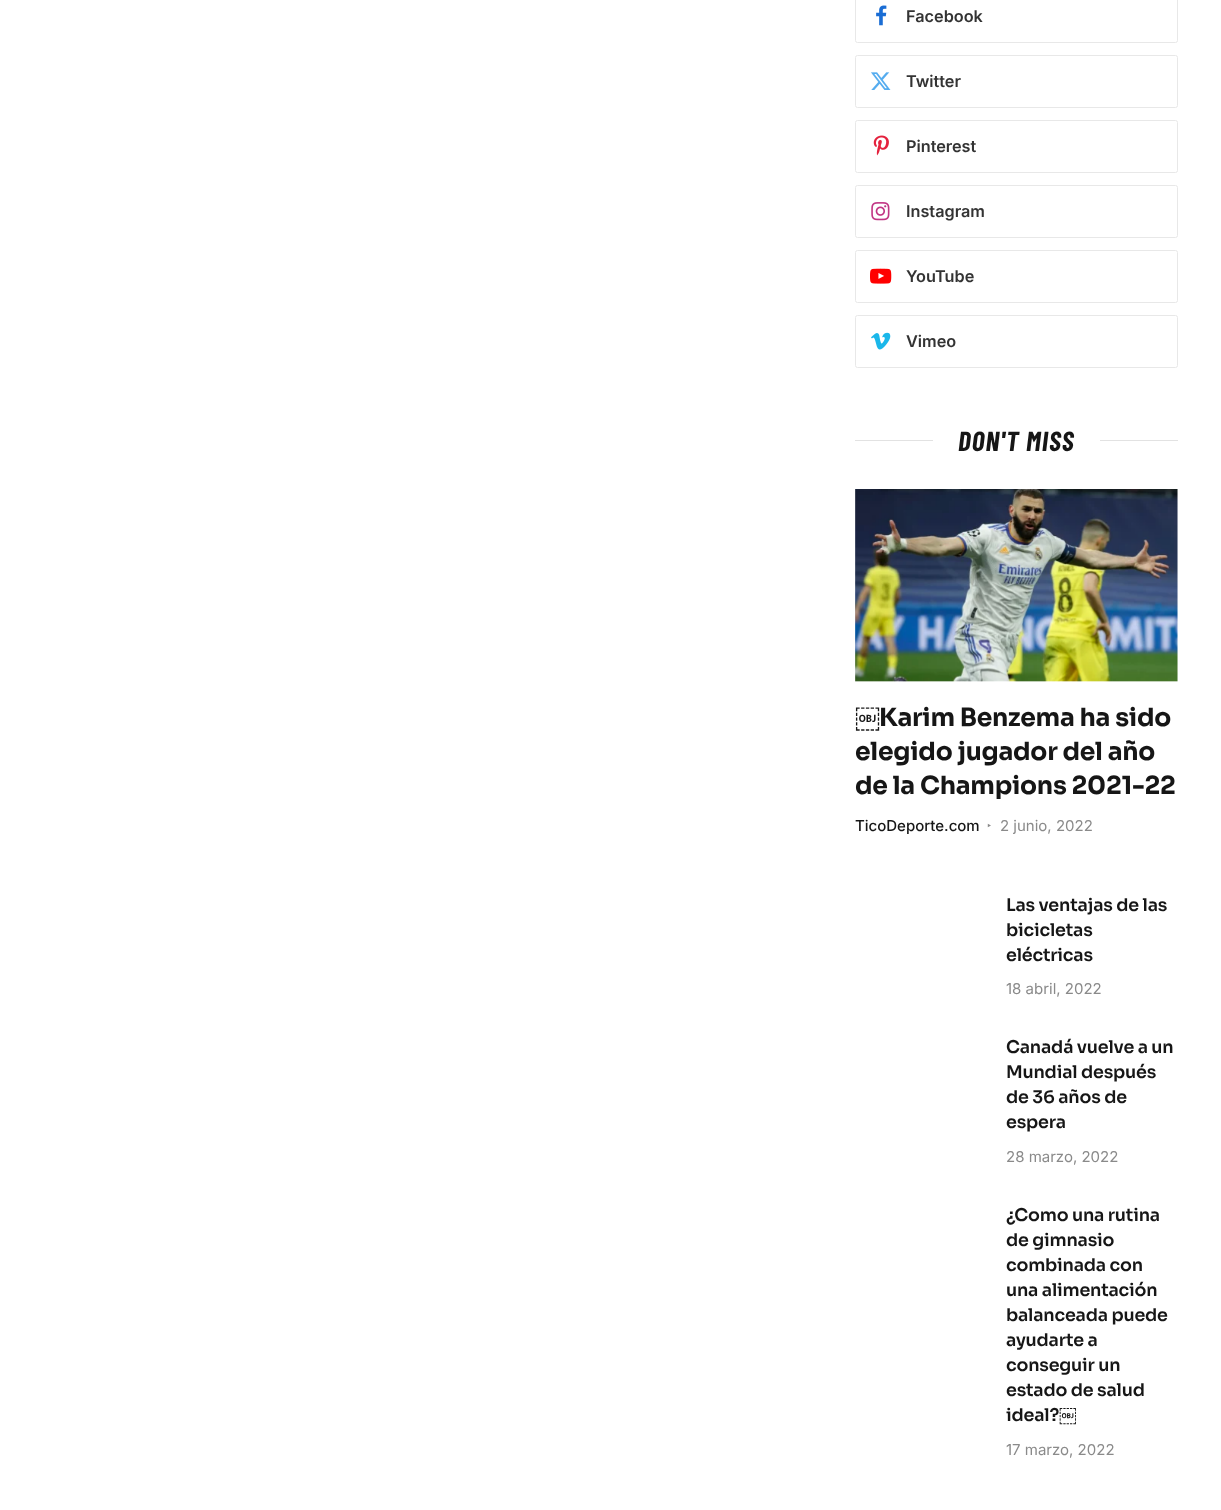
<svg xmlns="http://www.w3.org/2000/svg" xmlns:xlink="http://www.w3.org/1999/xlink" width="1221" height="1510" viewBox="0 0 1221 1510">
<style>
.cls-1{font:600 16.25px Inter;fill:#333333}
.cls-2{font:italic bold 27.5px Barlow Condensed;letter-spacing:1.1px;fill:#161616}
.cls-3{font:bold 25px Noto Sans;letter-spacing:-0.25px;fill:#161616}
.cls-4{font:bold 25px Sora;letter-spacing:-0.25px;fill:#161616}
.cls-5{font:500 15px Inter;fill:#161616}
.cls-6{font:12px Noto Sans;fill:#8a8a8a}
.cls-7{font:15px Inter;fill:#8a8a8a}
.cls-8{font:600 17.5px Sora;letter-spacing:-0.2px;fill:#161616}
.cls-9{font:600 17.5px Noto Sans;letter-spacing:-0.2px;fill:#161616}
</style>
<rect width="100%" height="100%" fill="#ffffff"/>
<rect fill="none" stroke="#e8e8e8" x="855.5" y="-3.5" width="322" height="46" rx="2"/>
<image xlink:href="image0.png" x="876" y="5" width="11" height="21"/>
<rect fill="none" stroke="#e8e8e8" x="855.5" y="55.5" width="322" height="52" rx="2"/>
<image xlink:href="image1.png" x="871" y="72" width="20" height="18"/>
<rect fill="none" stroke="#e8e8e8" x="855.5" y="120.5" width="322" height="52" rx="2"/>
<image xlink:href="image2.png" x="873" y="135" width="16" height="21"/>
<rect fill="none" stroke="#e8e8e8" x="855.5" y="185.5" width="322" height="52" rx="2"/>
<image xlink:href="image3.png" x="871" y="202" width="19" height="19"/>
<rect fill="none" stroke="#e8e8e8" x="855.5" y="250.5" width="322" height="52" rx="2"/>
<image xlink:href="image4.png" x="870" y="268" width="22" height="16"/>
<rect fill="none" stroke="#e8e8e8" x="855.5" y="315.5" width="322" height="52" rx="2"/>
<image xlink:href="image5.png" x="871" y="332" width="20" height="18"/>
<rect fill="#e2e2e2" x="855" y="440" width="78" height="1"/>
<rect fill="#e2e2e2" x="1100" y="440" width="78" height="1"/>
<image xlink:href="image6.png" x="855" y="489" width="323" height="193"/>
<text class="cls-1" x="906" y="22">Facebook</text>
<text class="cls-1" x="906" y="87">Twitter</text>
<text class="cls-1" x="906" y="152">Pinterest</text>
<text class="cls-1" x="906" y="217">Instagram</text>
<text class="cls-1" x="906" y="282">YouTube</text>
<text class="cls-1" x="906" y="347">Vimeo</text>
<text class="cls-2" x="958" y="451">DON'T MISS</text>
<text class="cls-3" x="855" y="726">￼</text>
<text class="cls-4" x="879" y="726">Karim Benzema ha sido</text>
<text class="cls-4"><tspan x="855" y="760">elegido jugador del año</tspan><tspan x="855" y="794">de la Champions 2021-22</tspan></text>
<text class="cls-5" x="855" y="831">TicoDeporte.com</text>
<text class="cls-6" x="987" y="830">‣</text>
<text class="cls-7" x="1000" y="831">2 junio, 2022</text>
<text class="cls-8"><tspan x="1006" y="911">Las ventajas de las</tspan><tspan x="1006" y="936">bicicletas</tspan><tspan x="1006" y="961">eléctricas</tspan></text>
<text class="cls-7" x="1006" y="994">18 abril, 2022</text>
<text class="cls-8"><tspan x="1006" y="1053">Canadá vuelve a un</tspan><tspan x="1006" y="1078">Mundial después</tspan><tspan x="1006" y="1103">de 36 años de</tspan><tspan x="1006" y="1128">espera</tspan></text>
<text class="cls-7" x="1006" y="1162">28 marzo, 2022</text>
<text class="cls-8"><tspan x="1006" y="1221">¿Como una rutina</tspan><tspan x="1006" y="1246">de gimnasio</tspan><tspan x="1006" y="1271">combinada con</tspan><tspan x="1006" y="1296">una alimentación</tspan><tspan x="1006" y="1321">balanceada puede</tspan><tspan x="1006" y="1346">ayudarte a</tspan><tspan x="1006" y="1371">conseguir un</tspan><tspan x="1006" y="1396">estado de salud</tspan><tspan x="1006" y="1421">ideal?</tspan></text>
<text class="cls-9" x="1059" y="1421">￼</text>
<text class="cls-7" x="1006" y="1455">17 marzo, 2022</text>
</svg>
